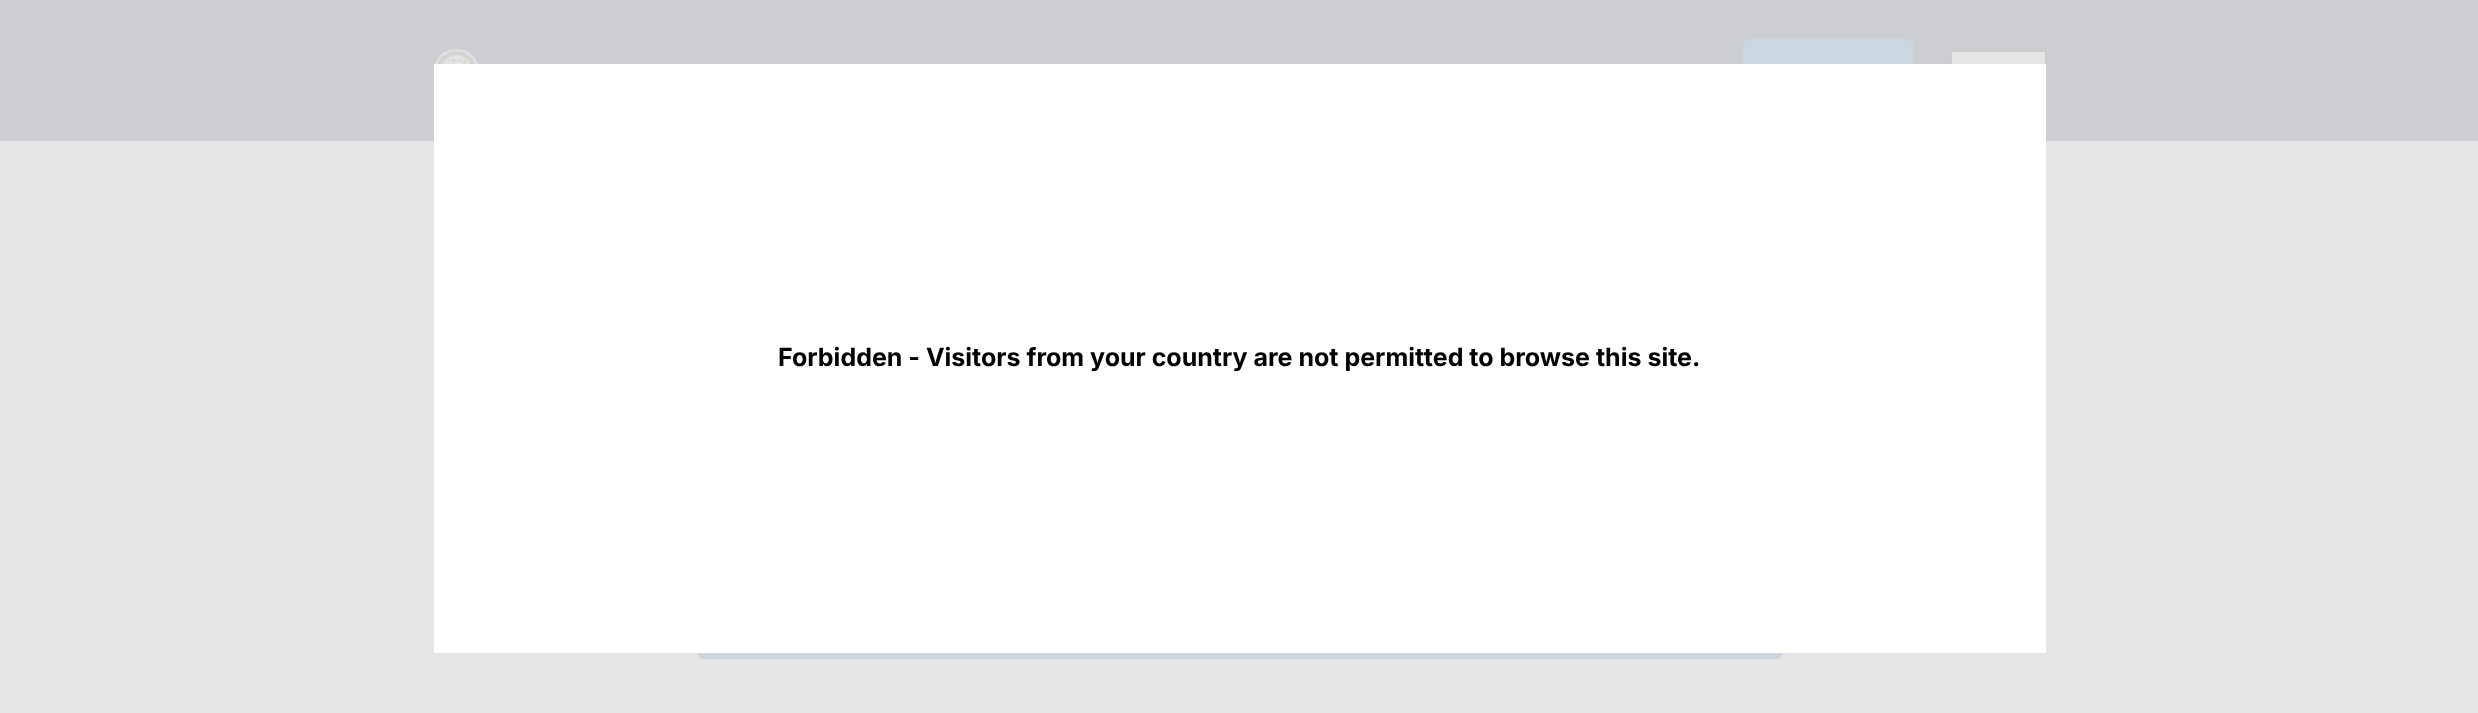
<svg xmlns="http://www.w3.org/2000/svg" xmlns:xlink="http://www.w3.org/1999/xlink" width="2478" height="713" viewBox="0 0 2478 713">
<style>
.cls-1{font:bold 25px Inter;fill:#000000}
</style>
<rect width="100%" height="100%" fill="#e6e6e6"/>
<rect fill="#ccced1" x="0" y="0" width="2478" height="141"/>
<image xlink:href="image0.png" x="433" y="48" width="45" height="29"/>
<rect fill="#ccd6e0" x="1743" y="39" width="171" height="65" rx="8"/>
<rect fill="#e6e6e6" x="1952" y="52" width="93" height="12"/>
<rect fill="#cccccc" x="1951" y="51" width="95" height="1"/>
<rect fill="#cccccc" x="2045" y="51" width="1" height="13"/>
<rect fill="#cccccc" x="1951" y="51" width="1" height="13"/>
<image xlink:href="image1.png" x="1959" y="63" width="26" height="1"/>
<rect fill="#ccd6e0" stroke="#e3e3e3" x="696.5" y="598.5" width="1087" height="61" rx="7.5"/>
<rect fill="#ffffff" x="434" y="64" width="1612" height="589"/>
<text class="cls-1" x="778" y="366">Forbidden - Visitors from your country are not permitted to browse this site.</text>
</svg>
